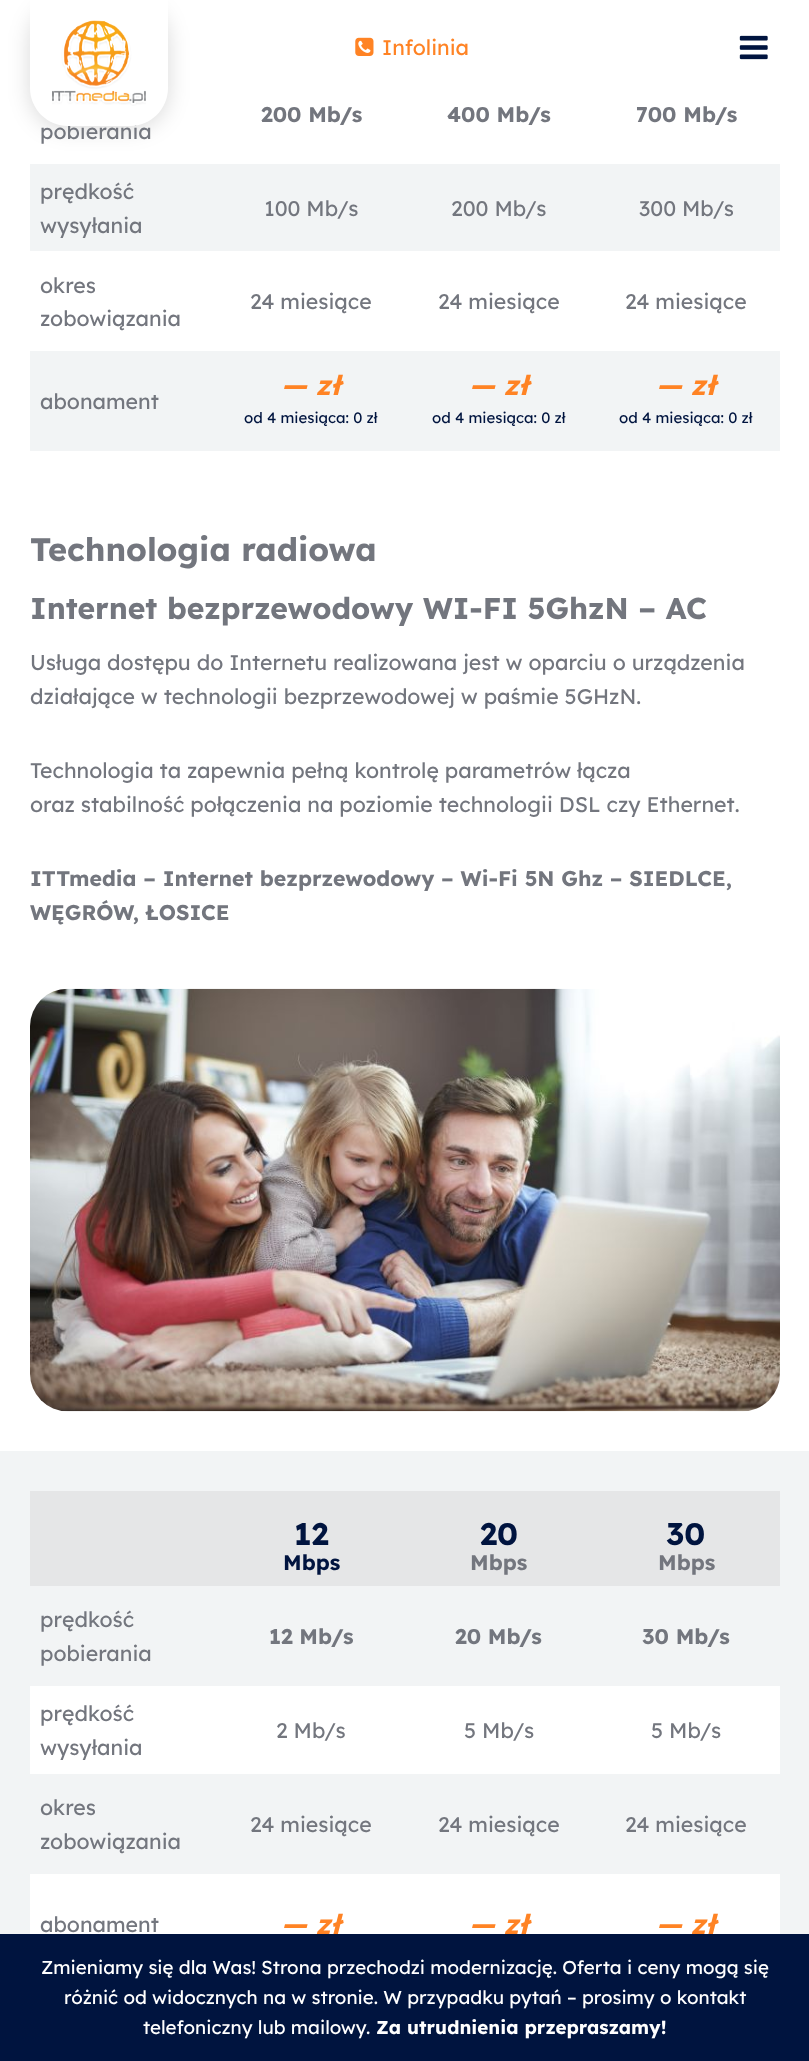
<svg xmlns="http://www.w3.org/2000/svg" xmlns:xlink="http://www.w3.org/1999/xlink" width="809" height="2061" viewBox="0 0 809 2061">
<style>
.cls-1{font:21.25px Lexend;fill:#ff8324}
.cls-2{font:bold 21.25px Lexend;fill:#73767e}
.cls-3{font:21.25px Lexend;fill:#73767e}
.cls-4{font:italic bold 27.5px Lexend;fill:#ff8324}
.cls-5{font:15px Lexend;fill:#00143f}
.cls-6{font:bold 32.5px Lexend;fill:#73767e}
.cls-7{font:bold 30px Lexend;fill:#73767e}
.cls-8{font:bold 31px Lexend;fill:#00143f}
.cls-9{font:bold 21.25px Lexend;fill:#00143f}
.cls-10{font:18.75px Lexend;fill:#ffffff}
.cls-11{font:bold 18.75px Lexend;fill:#ffffff}
</style>
<rect width="100%" height="100%" fill="#ffffff"/>
<rect fill="#000000" fill-opacity="0.15" filter="blur(11px)" x="30" y="3" width="138" height="126" rx="38"/>
<image xlink:href="image1.png" x="355" y="37" width="19" height="19"/>
<image xlink:href="image2.png" x="739" y="35" width="29" height="25"/>
<rect fill="#f2f4f5" x="30" y="164" width="750" height="87"/>
<rect fill="#f2f4f5" x="30" y="351" width="750" height="100"/>
<image xlink:href="image3.png" x="30" y="988" width="750" height="424"/>
<rect fill="#f2f4f5" x="0" y="1451" width="809" height="483"/>
<rect fill="#e5e6e7" x="30" y="1491" width="750" height="95"/>
<rect fill="#ffffff" x="30" y="1686" width="750" height="88"/>
<rect fill="#ffffff" x="30" y="1874" width="750" height="60"/>
<rect fill="#00143f" x="0" y="1934" width="809" height="127"/>
<text class="cls-1" x="382" y="55">Infolinia</text>
<text class="cls-2" x="261" y="122">200 Mb/s</text>
<text class="cls-2" x="447" y="122">400 Mb/s</text>
<text class="cls-2" x="636" y="122">700 Mb/s</text>
<text class="cls-3" x="40" y="139">pobierania</text>
<path fill="#ffffff" d="M30 0H168V88C168 109 151 126 130 126H68C47 126 30 109 30 88Z"/>
<image xlink:href="image0.png" x="52" y="20" width="94" height="86"/>
<text class="cls-3"><tspan x="40" y="199">prędkość</tspan><tspan x="40" y="233">wysyłania</tspan></text>
<text class="cls-3" x="264" y="216">100 Mb/s</text>
<text class="cls-3" x="451" y="216">200 Mb/s</text>
<text class="cls-3" x="639" y="216">300 Mb/s</text>
<text class="cls-3"><tspan x="40" y="293">okres</tspan><tspan x="40" y="326">zobowiązania</tspan></text>
<text class="cls-3" x="250" y="309">24 miesiące</text>
<text class="cls-3" x="438" y="309">24 miesiące</text>
<text class="cls-3" x="625" y="309">24 miesiące</text>
<text class="cls-3" x="40" y="409">abonament</text>
<text class="cls-4" x="281" y="395">— zł</text>
<text class="cls-5" x="244" y="423">od 4 miesiąca: 0 zł</text>
<text class="cls-4" x="469" y="395">— zł</text>
<text class="cls-5" x="432" y="423">od 4 miesiąca: 0 zł</text>
<text class="cls-4" x="656" y="395">— zł</text>
<text class="cls-5" x="619" y="423">od 4 miesiąca: 0 zł</text>
<text class="cls-6" x="30" y="561">Technologia radiowa</text>
<text class="cls-7" x="30" y="619">Internet bezprzewodowy WI-FI 5GhzN – AC</text>
<text class="cls-3"><tspan x="30" y="670">Usługa dostępu do Internetu realizowana jest w oparciu o urządzenia</tspan><tspan x="30" y="704">działające w technologii bezprzewodowej w paśmie 5GHzN.</tspan></text>
<text class="cls-3"><tspan x="30" y="778">Technologia ta zapewnia pełną kontrolę parametrów łącza</tspan><tspan x="30" y="812">oraz stabilność połączenia na poziomie technologii DSL czy Ethernet.</tspan></text>
<text class="cls-2"><tspan x="30" y="886">ITTmedia – Internet bezprzewodowy – Wi-Fi 5N Ghz – SIEDLCE,</tspan><tspan x="30" y="920">WĘGRÓW, ŁOSICE</tspan></text>
<text class="cls-8" x="294" y="1545">12</text>
<text class="cls-9" x="283" y="1570">Mbps</text>
<text class="cls-8" x="480" y="1545">20</text>
<text class="cls-2" x="470" y="1570">Mbps</text>
<text class="cls-8" x="666" y="1545">30</text>
<text class="cls-2" x="658" y="1570">Mbps</text>
<text class="cls-3"><tspan x="40" y="1627">prędkość</tspan><tspan x="40" y="1661">pobierania</tspan></text>
<text class="cls-2" x="269" y="1644">12 Mb/s</text>
<text class="cls-2" x="455" y="1644">20 Mb/s</text>
<text class="cls-2" x="642" y="1644">30 Mb/s</text>
<text class="cls-3"><tspan x="40" y="1721">prędkość</tspan><tspan x="40" y="1755">wysyłania</tspan></text>
<text class="cls-3" x="276" y="1738">2 Mb/s</text>
<text class="cls-3" x="464" y="1738">5 Mb/s</text>
<text class="cls-3" x="651" y="1738">5 Mb/s</text>
<text class="cls-3"><tspan x="40" y="1815">okres</tspan><tspan x="40" y="1849">zobowiązania</tspan></text>
<text class="cls-3" x="250" y="1832">24 miesiące</text>
<text class="cls-3" x="438" y="1832">24 miesiące</text>
<text class="cls-3" x="625" y="1832">24 miesiące</text>
<text class="cls-3" x="40" y="1932">abonament</text>
<text class="cls-4" x="281" y="1934">— zł</text>
<text class="cls-4" x="469" y="1934">— zł</text>
<text class="cls-4" x="656" y="1934">— zł</text>
<text class="cls-10" x="41" y="1974">Zmieniamy się dla Was! Strona przechodzi modernizację. Oferta i ceny mogą się</text>
<text class="cls-10" x="64" y="2004">różnić od widocznych na w stronie. W przypadku pytań – prosimy o kontakt</text>
<text class="cls-10" x="143" y="2034">telefoniczny lub mailowy.</text>
<text class="cls-11" x="376" y="2034">Za utrudnienia przepraszamy!</text>
</svg>
